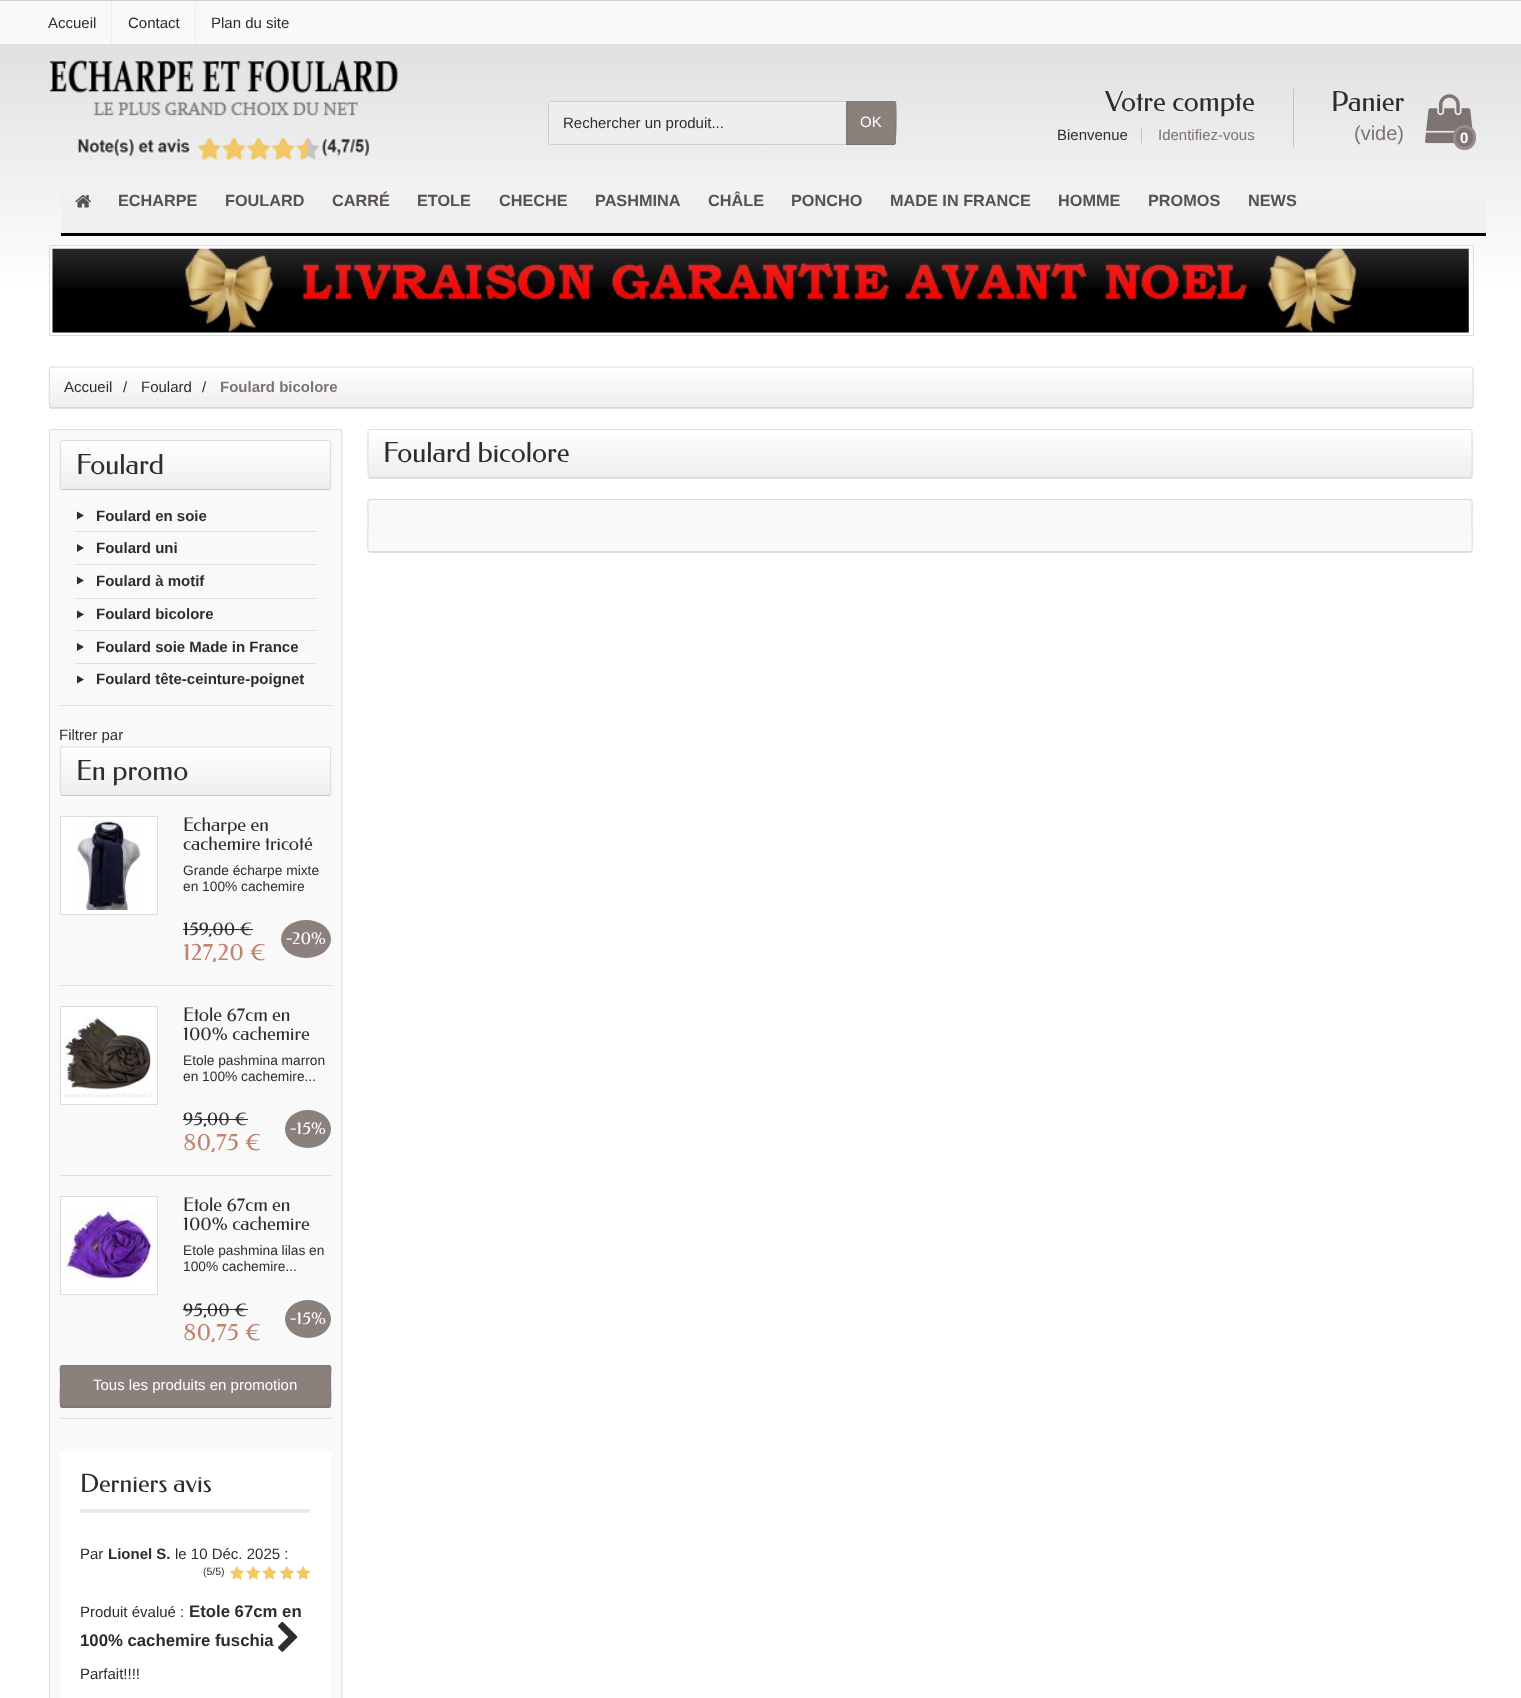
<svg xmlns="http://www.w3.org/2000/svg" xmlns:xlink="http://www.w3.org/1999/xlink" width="1521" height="1698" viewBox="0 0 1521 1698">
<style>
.cls-1{font:15px Liberation Sans;fill:#2e2c2e}
.cls-2{font:15px Liberation Sans;fill:#ffffff}
.cls-3{font:27.5px Federo;fill:#2e2c2e}
.cls-4{font:15px Liberation Sans;fill:#7d7370}
.cls-5{font:20px Liberation Sans;fill:#7d7370}
.cls-6{font:bold 15px Liberation Sans;fill:#ffffff}
.cls-7{font:bold 16.25px Liberation Sans;fill:#57514f}
.cls-8{font:bold 15px Liberation Sans;fill:#7d7370}
.cls-9{font:bold 15px Liberation Sans;fill:#2e2c2e}
.cls-10{font:18.75px Federo;fill:#2e2c2e}
.cls-11{font:13.75px Liberation Sans;fill:#2e2c2e}
.cls-12{font:17.5px Federo;fill:#ffffff}
.cls-13{font:24px Federo;fill:#bf8470}
.cls-14{font:25px Federo;fill:#2e2c2e}
.cls-15{font:10.5px Liberation Sans;fill:#2e2c2e}
.cls-16{font:bold 16.75px Liberation Sans;fill:#2e2c2e}
</style>
<defs>
<linearGradient id="g1" gradientUnits="userSpaceOnUse" x1="761" y1="44" x2="761" y2="294"><stop offset="0" stop-color="#e0e0e0"/><stop offset="1" stop-color="#e0e0e0" stop-opacity="0"/></linearGradient>
<linearGradient id="g2" gradientUnits="userSpaceOnUse" x1="761" y1="367" x2="761" y2="408"><stop offset="0" stop-color="#ffffff"/><stop offset="1" stop-color="#eeeeee"/></linearGradient>
<clipPath id="clip1"><rect x="60" y="440" width="271" height="50" rx="2.5"/></clipPath>
<linearGradient id="g3" gradientUnits="userSpaceOnUse" x1="196" y1="441" x2="196" y2="489"><stop offset="0" stop-color="#ffffff"/><stop offset="1" stop-color="#eeeeee"/></linearGradient>
<linearGradient id="g4" gradientUnits="userSpaceOnUse" x1="196" y1="748" x2="196" y2="795"><stop offset="0" stop-color="#ffffff"/><stop offset="1" stop-color="#eeeeee"/></linearGradient>
<clipPath id="clip2"><rect x="368" y="429" width="1105" height="50" rx="2.5"/></clipPath>
<linearGradient id="g5" gradientUnits="userSpaceOnUse" x1="920" y1="430" x2="920" y2="478"><stop offset="0" stop-color="#ffffff"/><stop offset="1" stop-color="#eeeeee"/></linearGradient>
</defs>
<rect width="100%" height="100%" fill="#ffffff"/>
<rect fill="#cecece" x="0" y="0" width="1521" height="1"/>
<rect fill="#f9f9f9" x="0" y="1" width="1521" height="43"/>
<rect fill="#ededed" x="111" y="1" width="1" height="44"/>
<rect fill="#ededed" x="195" y="1" width="1" height="44"/>
<rect fill="none" stroke="#dddddd" x="49.5" y="245.5" width="1424" height="90"/>
<image xlink:href="image3.png" x="52" y="248" width="1417" height="85"/>
<rect fill="url(#g1)" x="0" y="44" width="1521" height="245"/>
<image xlink:href="image0.png" x="49" y="59" width="349" height="102"/>
<path fill="#eeeeee" stroke="#cccccc" d="M550.5 101.5H847.5V144.5H550.5C549.5 144.5 548.5 143.5 548.5 142.5V103.5C548.5 102.5 549.5 101.5 550.5 101.5Z"/>
<path fill="#8a807c" d="M846 101H893.5C895 101 896 102 896 103.5V142.5C896 144 895 145 893.5 145H846Z"/>
<path fill="#857a77" d="M848 102V103L846 101H895L896 102L895 103L894 102Z"/>
<path fill="#857a77" d="M896 102C897 104 897 143 895 144V143C895 142 896 104 895 103Z"/>
<path fill="#786e6b" d="M846 145H894L895 144V143L894 144H848V143Z"/>
<path fill="#857a77" d="M846 145L848 143V103L846 101Z"/>
<rect fill="#c4c4c4" x="1141" y="128" width="1" height="15"/>
<rect fill="#c4c4c4" x="1293" y="89" width="1" height="59"/>
<image xlink:href="image1.png" x="1425" y="94" width="48" height="50"/>
<rect fill="#7d7370" stroke="#968d8a" stroke-width="3" x="1454.5" y="126.5" width="20" height="22" rx="10"/>
<rect fill="#f0f0f0" x="61" y="194" width="1425" height="39"/>
<rect fill="#000000" x="61" y="233" width="1425" height="3"/>
<image xlink:href="image2.png" x="75" y="195" width="16" height="13"/>
<rect fill="url(#g2)" x="49" y="373" width="1425" height="35"/>
<path fill="none" stroke="#c4c4c4" stroke-width="1.2" d="M1472.5 407.5L1471 408H51L50 407.5"/>
<path fill="none" stroke="#dddddd" stroke-width="1.2" d="M50 407.5C48.5 406 49.5 379 49.5 375C49.5 374.5 48 367 51 367H1471C1474.5 367 1473 374.5 1473 375C1473 379 1474 406 1472.5 407.5"/>
<rect fill="#f9f9f9" x="49" y="429" width="294" height="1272" rx="2.5"/>
<path fill="none" stroke="#dddddd" stroke-width="1.2" d="M50 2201.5L49.5 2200V431C49.5 430 50 429.5 51 429.5H340.5C341 429.5 342 430.5 342 431V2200L341.5 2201.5"/>
<rect fill="#dddddd" x="60" y="705" width="271" height="1"/>
<g clip-path="url(#clip1)">
<rect fill="url(#g3)" x="60" y="441" width="271" height="48"/>
</g>
<path fill="none" stroke="#c4c4c4" stroke-width="1.2" d="M330 489L329 489.5H62.5L61 489"/>
<path fill="none" stroke="#dddddd" stroke-width="1.2" d="M61 489C59.5 487.5 60.5 468 60.5 465V450C60.5 446.5 59.5 440.5 62.5 440.5H329C332 440.5 330.5 446.5 330.5 450V465C330.5 468 331.5 487.5 330 489"/>
<rect fill="#dddddd" x="75" y="531" width="241" height="1"/>
<path fill="#2e2c2e" d="M84 515.5L77 519.5V511.5Z"/>
<rect fill="#dddddd" x="75" y="564" width="241" height="1"/>
<path fill="#2e2c2e" d="M84 548L77 552V544Z"/>
<rect fill="#dddddd" x="75" y="598" width="241" height="1"/>
<path fill="#2e2c2e" d="M84 580.5L77 584.5V576.5Z"/>
<rect fill="#dddddd" x="75" y="630" width="241" height="1"/>
<path fill="#2e2c2e" d="M84 614.5L77 618.5V610.5Z"/>
<rect fill="#dddddd" x="75" y="663" width="241" height="1"/>
<path fill="#2e2c2e" d="M84 647L77 651V643Z"/>
<path fill="#2e2c2e" d="M84 679.5L77 683.5V675.5Z"/>
<rect fill="#dddddd" x="60" y="1418" width="271" height="1"/>
<rect fill="url(#g4)" x="60" y="748" width="271" height="47"/>
<path fill="none" stroke="#c4c4c4" stroke-width="1.2" d="M330 795L329 795.5H62.5L61 795"/>
<path fill="none" stroke="#dddddd" stroke-width="1.2" d="M61 795C59.5 793.5 60.5 774.5 60.5 771V756C60.5 752.5 59.5 747 62.5 747H329C332 747 330.5 752.5 330.5 756V771C330.5 774.5 331.5 793.5 330 795"/>
<rect fill="#ffffff" stroke="#dddddd" x="60.5" y="816.5" width="97" height="98"/>
<image xlink:href="image4.png" x="76" y="820" width="67" height="90"/>
<rect fill="#2e2c2e" x="183" y="929" width="70" height="1"/>
<ellipse fill="#8a807c" cx="306" cy="939" rx="25" ry="19"/>
<rect fill="#dddddd" x="60" y="985" width="271" height="1"/>
<rect fill="#ffffff" stroke="#dddddd" x="60.5" y="1006.5" width="97" height="98"/>
<image xlink:href="image5.png" x="63" y="1017" width="91" height="81"/>
<rect fill="#2e2c2e" x="183" y="1119" width="65" height="1"/>
<ellipse fill="#8a807c" cx="308" cy="1129" rx="23" ry="19"/>
<rect fill="#dddddd" x="60" y="1175" width="271" height="1"/>
<rect fill="#ffffff" stroke="#dddddd" x="60.5" y="1196.5" width="97" height="98"/>
<image xlink:href="image6.png" x="63" y="1200" width="91" height="86"/>
<rect fill="#2e2c2e" x="183" y="1309" width="65" height="1"/>
<ellipse fill="#8a807c" cx="308" cy="1319" rx="23" ry="19"/>
<rect fill="#8a807c" x="60" y="1365" width="271" height="43" rx="2.5"/>
<path fill="none" stroke="#786e6b" stroke-width="1.2" d="M330 1406.5L329 1407H62.5L61 1406.5"/>
<path fill="none" stroke="#857a77" stroke-width="1.2" d="M61 1406.5C59.5 1405 60.5 1389 60.5 1386V1374C60.5 1373.5 59 1365.5 62.5 1365.5H329C332 1365.5 330.5 1373.5 330.5 1374V1386C330.5 1389 331.5 1405 330 1406.5"/>
<rect fill="#ffffff" x="60" y="1451" width="271" height="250" rx="2.5"/>
<rect fill="#ebebeb" x="80" y="1509" width="230" height="4"/>
<image xlink:href="image7.png" x="230" y="1566" width="14" height="14"/>
<image xlink:href="image8.png" x="246" y="1566" width="15" height="14"/>
<image xlink:href="image9.png" x="262" y="1566" width="15" height="14"/>
<image xlink:href="image7.png" x="280" y="1566" width="14" height="14"/>
<image xlink:href="image8.png" x="296" y="1566" width="15" height="14"/>
<image xlink:href="image10.png" x="278" y="1621" width="20" height="31"/>
<g clip-path="url(#clip2)">
<rect fill="url(#g5)" x="368" y="430" width="1105" height="48"/>
</g>
<path fill="none" stroke="#c4c4c4" stroke-width="1.2" d="M1471.5 477.5L1470 478H370L368.5 477.5"/>
<path fill="none" stroke="#dddddd" stroke-width="1.2" d="M368.5 477.5C367.5 476.5 368 436.5 368 431C368 430 369 429.5 370 429.5H1470C1471 429.5 1472 430 1472 431C1472 436.5 1472.5 476.5 1471.5 477.5"/>
<rect fill="#f9f9f9" x="368" y="499" width="1105" height="54" rx="2.5"/>
<path fill="none" stroke="#c4c4c4" stroke-width="1.2" d="M1471.5 551.5L1470 552H370L368.5 551.5"/>
<path fill="none" stroke="#dddddd" stroke-width="1.2" d="M368.5 551.5C367 549.5 368 529 368 525.5V509.5C368 505.5 366.5 499.5 370 499.5H1470C1473.5 499.5 1472 505.5 1472 509.5V525.5C1472 529 1473 549.5 1471.5 551.5"/>
<text class="cls-1" x="48" y="28">Accueil</text>
<text class="cls-1" x="128" y="28">Contact</text>
<text class="cls-1" x="211" y="28">Plan du site</text>
<text class="cls-1" x="563" y="128">Rechercher un produit...</text>
<text class="cls-2" x="860" y="127">OK</text>
<text class="cls-3" x="1105" y="111">Votre compte</text>
<text class="cls-1" x="1057" y="140">Bienvenue</text>
<text class="cls-4" x="1158" y="140">Identifiez-vous</text>
<text class="cls-3" x="1331" y="111">Panier</text>
<text class="cls-5" x="1354" y="140">(vide)</text>
<text class="cls-6" x="1460" y="143">0</text>
<text class="cls-7" x="118" y="206">ECHARPE</text>
<text class="cls-7" x="225" y="206">FOULARD</text>
<text class="cls-7" x="332" y="206">CARRÉ</text>
<text class="cls-7" x="417" y="206">ETOLE</text>
<text class="cls-7" x="499" y="206">CHECHE</text>
<text class="cls-7" x="595" y="206">PASHMINA</text>
<text class="cls-7" x="708" y="206">CHÂLE</text>
<text class="cls-7" x="791" y="206">PONCHO</text>
<text class="cls-7" x="890" y="206">MADE IN FRANCE</text>
<text class="cls-7" x="1058" y="206">HOMME</text>
<text class="cls-7" x="1148" y="206">PROMOS</text>
<text class="cls-7" x="1248" y="206">NEWS</text>
<text class="cls-1" x="64" y="392">Accueil</text>
<text class="cls-1" x="123" y="392">/</text>
<text class="cls-1" x="141" y="392">Foulard</text>
<text class="cls-1" x="202" y="392">/</text>
<text class="cls-8" x="220" y="392">Foulard bicolore</text>
<text class="cls-3" x="76" y="474">Foulard</text>
<text class="cls-9" x="96" y="521">Foulard en soie</text>
<text class="cls-9" x="96" y="553">Foulard uni</text>
<text class="cls-9" x="96" y="586">Foulard à motif</text>
<text class="cls-9" x="96" y="619">Foulard bicolore</text>
<text class="cls-9" x="96" y="652">Foulard soie Made in France</text>
<text class="cls-9" x="96" y="684">Foulard tête-ceinture-poignet</text>
<text class="cls-1" x="59" y="740">Filtrer par</text>
<text class="cls-3" x="76" y="780">En promo</text>
<text class="cls-10"><tspan x="183" y="831">Echarpe en</tspan><tspan x="183" y="850">cachemire tricoté</tspan></text>
<text class="cls-11"><tspan x="183" y="875">Grande écharpe mixte</tspan><tspan x="183" y="891">en 100% cachemire</tspan></text>
<text class="cls-10" x="183" y="935">159,00 €</text>
<text class="cls-12" x="286" y="944">-20%</text>
<text class="cls-13" x="183" y="960">127,20 €</text>
<text class="cls-10"><tspan x="183" y="1021">Etole 67cm en</tspan><tspan x="183" y="1040">100% cachemire</tspan></text>
<text class="cls-11"><tspan x="183" y="1065">Etole pashmina marron</tspan><tspan x="183" y="1081">en 100% cachemire...</tspan></text>
<text class="cls-10" x="183" y="1125">95,00 €</text>
<text class="cls-12" x="290" y="1134">-15%</text>
<text class="cls-13" x="183" y="1150">80,75 €</text>
<text class="cls-10"><tspan x="183" y="1211">Etole 67cm en</tspan><tspan x="183" y="1230">100% cachemire</tspan></text>
<text class="cls-11"><tspan x="183" y="1255">Etole pashmina lilas en</tspan><tspan x="183" y="1271">100% cachemire...</tspan></text>
<text class="cls-10" x="183" y="1316">95,00 €</text>
<text class="cls-12" x="290" y="1324">-15%</text>
<text class="cls-13" x="183" y="1340">80,75 €</text>
<text class="cls-2" x="93" y="1390">Tous les produits en promotion</text>
<text class="cls-14" x="80" y="1492">Derniers avis</text>
<text class="cls-1" x="80" y="1559">Par</text>
<text class="cls-9" x="108" y="1559">Lionel S.</text>
<text class="cls-1" x="175" y="1559">le 10 Déc. 2025 :</text>
<text class="cls-15" x="203" y="1575">(5/5)</text>
<text class="cls-1" x="80" y="1617">Produit évalué :</text>
<text class="cls-16" x="189" y="1617">Etole 67cm en</text>
<text class="cls-16" x="80" y="1646">100% cachemire fuschia</text>
<text class="cls-1" x="80" y="1679">Parfait!!!!</text>
<text class="cls-3" x="383" y="462">Foulard bicolore</text>
</svg>
